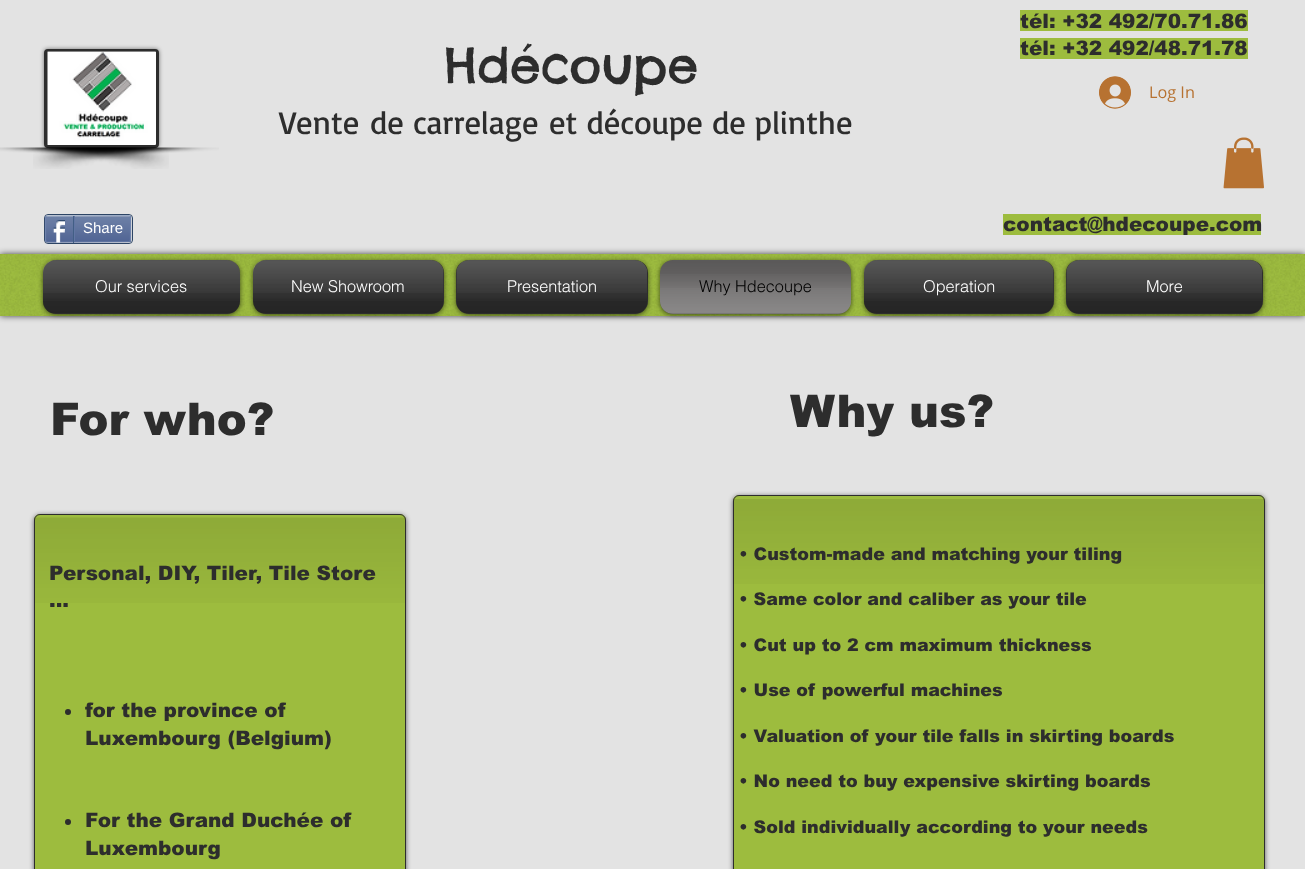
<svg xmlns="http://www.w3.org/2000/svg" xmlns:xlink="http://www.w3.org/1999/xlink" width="1305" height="869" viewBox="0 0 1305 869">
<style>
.cls-1{font:900 20px arial;fill:#2d2d2d}
.cls-2{font:48.75px Chelsea Market;fill:#2d2d2d}
.cls-3{font:32.5px Basic;fill:#2d2d2d}
.cls-4{font:16.25px Open Sans;fill:#b77231}
.cls-5{font:15px Liberation Sans;fill:#ffffff}
.cls-6{font:300 16.25px helvetica;fill:#ffffff}
.cls-7{font:300 16.25px helvetica;fill:#000000}
.cls-8{font:900 45px arial;fill:#2d2d2d}
.cls-9{font:900 17.5px arial;fill:#2d2d2d}
</style>
<rect width="100%" height="100%" fill="#e3e3e3"/>
<rect fill="#9dbc3e" x="1020" y="10" width="228" height="21"/>
<rect fill="#000000" fill-opacity="0.5" filter="blur(2px)" x="44" y="49" width="115" height="99" rx="4"/>
<rect fill="#2d2d2d" stroke="#2d2d2d" stroke-width="3" x="45.5" y="50.5" width="112" height="96" rx="2.5"/>
<image xlink:href="image0.png" x="47" y="51" width="109" height="94"/>
<image xlink:href="image2.png" x="33" y="147" width="186" height="22"/>
<image xlink:href="image1.png" x="0" y="147" width="169" height="22"/>
<rect fill="#9dbc3e" x="1020" y="38" width="228" height="21"/>
<image xlink:href="image3.png" x="1099" y="76" width="32" height="33"/>
<image xlink:href="image4.png" x="1223" y="137" width="41" height="52"/>
<rect fill="none" stroke="#2d4565" x="44.5" y="214.5" width="88" height="29" rx="3.5"/>
<image xlink:href="image5.png" x="45" y="216" width="87" height="27"/>
<path fill="none" stroke="#9aabc6" stroke-width="1.2" d="M46 216L115 215.5H129L130 216"/>
<path fill="none" stroke="#6f83ad" stroke-width="1.2" d="M130 216L130.5 217.5V240L130 241.5"/>
<path fill="none" stroke="#6176a3" stroke-width="1.2" d="M130 241.5L61 242H47.5L46 241.5"/>
<path fill="none" stroke="#6f83ad" stroke-width="1.2" d="M46 241.5L45.5 240V217.5L46 216"/>
<image xlink:href="image6.png" x="52" y="220" width="13" height="23"/>
<rect fill="#425e85" x="73" y="216" width="1" height="27"/>
<rect fill="#6176a3" x="74" y="216" width="1" height="25"/>
<rect fill="#9dbc3e" x="1003" y="214" width="258" height="21"/>
<rect fill="#000000" fill-opacity="0.7" filter="blur(3px)" x="0" y="254" width="1305" height="62"/>
<rect fill="#9dbc3e" x="0" y="254" width="1305" height="62"/>
<image xlink:href="image7.png" x="0" y="254" width="1305" height="62"/>
<rect fill="#000000" fill-opacity="0.6" filter="blur(2.5px)" x="43" y="261" width="197" height="54" rx="13"/>
<rect fill="#2d2d2d" x="43" y="260" width="197" height="54" rx="13"/>
<image xlink:href="image8.png" x="43" y="260" width="197" height="41"/>
<image xlink:href="image9.png" x="43" y="293" width="197" height="20"/>
<rect fill="#000000" fill-opacity="0.6" filter="blur(2.5px)" x="253" y="261" width="191" height="54" rx="13"/>
<rect fill="#2d2d2d" x="253" y="260" width="191" height="54" rx="13"/>
<image xlink:href="image10.png" x="253" y="260" width="191" height="41"/>
<image xlink:href="image11.png" x="253" y="293" width="190" height="20"/>
<rect fill="#000000" fill-opacity="0.6" filter="blur(2.5px)" x="456" y="261" width="192" height="54" rx="13"/>
<rect fill="#2d2d2d" x="456" y="260" width="192" height="54" rx="13"/>
<image xlink:href="image12.png" x="456" y="260" width="191" height="41"/>
<image xlink:href="image13.png" x="457" y="293" width="190" height="20"/>
<rect fill="#000000" fill-opacity="0.6" filter="blur(2.5px)" x="660" y="261" width="191" height="54" rx="13"/>
<rect fill="#6d6b6b" x="660" y="260" width="191" height="54" rx="13"/>
<image xlink:href="image14.png" x="660" y="260" width="191" height="28"/>
<image xlink:href="image15.png" x="660" y="274" width="191" height="40"/>
<rect fill="#000000" fill-opacity="0.6" filter="blur(2.5px)" x="864" y="261" width="190" height="54" rx="13"/>
<rect fill="#2d2d2d" x="864" y="260" width="190" height="54" rx="13"/>
<image xlink:href="image16.png" x="864" y="260" width="190" height="41"/>
<image xlink:href="image17.png" x="864" y="293" width="189" height="20"/>
<rect fill="#000000" fill-opacity="0.6" filter="blur(2.5px)" x="1066" y="261" width="197" height="54" rx="13"/>
<rect fill="#2d2d2d" x="1066" y="260" width="197" height="54" rx="13"/>
<image xlink:href="image18.png" x="1066" y="260" width="196" height="41"/>
<image xlink:href="image19.png" x="1067" y="293" width="195" height="20"/>
<rect fill="#000000" fill-opacity="0.6" filter="blur(2.5px)" x="34" y="515" width="372" height="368" rx="6"/>
<rect fill="#9dbc3e" x="34" y="514" width="372" height="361" rx="6"/>
<image xlink:href="image20.png" x="34" y="517" width="372" height="86"/>
<rect fill="none" stroke="#2d2d2d" x="34.5" y="514.5" width="371" height="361" rx="5.5"/>
<circle fill="#2d2d2d" cx="68" cy="712" r="3"/>
<circle fill="#2d2d2d" cx="68" cy="822" r="3"/>
<rect fill="#000000" fill-opacity="0.6" filter="blur(2.5px)" x="733" y="496" width="532" height="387" rx="6"/>
<rect fill="#9dbc3e" x="733" y="495" width="532" height="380" rx="6"/>
<image xlink:href="image21.png" x="732" y="499" width="533" height="85"/>
<rect fill="none" stroke="#2d2d2d" x="733.5" y="495.5" width="531" height="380" rx="5.5"/>
<text class="cls-1" x="1020" y="28">tél: +32 492/70.71.86</text>
<text class="cls-2" x="444" y="83">Hdécoupe</text>
<text class="cls-3" x="279" y="134">Vente</text>
<text class="cls-3" x="370" y="134">de carrelage</text>
<text class="cls-3" x="549" y="134">et découpe de plinthe</text>
<text class="cls-1" x="1020" y="55">tél: +32 492/48.71.78</text>
<text class="cls-4" x="1149" y="98">Log In</text>
<text class="cls-5" x="83" y="233">Share</text>
<text class="cls-1" x="1003" y="231">contact@hdecoupe.com</text>
<text class="cls-6" x="95" y="292">Our services</text>
<text class="cls-6" x="291" y="292">New Showroom</text>
<text class="cls-6" x="507" y="292">Presentation</text>
<text class="cls-7" x="699" y="292">Why Hdecoupe</text>
<text class="cls-6" x="923" y="292">Operation</text>
<text class="cls-6" x="1146" y="292">More</text>
<text class="cls-8" x="50" y="435">For who?</text>
<text class="cls-8" x="790" y="427">Why us?</text>
<text class="cls-1"><tspan x="49" y="580">Personal, DIY, Tiler, Tile Store</tspan><tspan x="49" y="607">...</tspan></text>
<text class="cls-1"><tspan x="85" y="717">for the province of</tspan><tspan x="85" y="745">Luxembourg (Belgium)</tspan></text>
<text class="cls-1"><tspan x="85" y="827">For the Grand Duchée of</tspan><tspan x="85" y="855">Luxembourg</tspan></text>
<text class="cls-9" x="739" y="560">• Custom-made and matching your tiling</text>
<text class="cls-9" x="739" y="605">• Same color and caliber as your tile</text>
<text class="cls-9" x="739" y="651">• Cut up to 2 cm maximum thickness</text>
<text class="cls-9" x="739" y="696">• Use of powerful machines</text>
<text class="cls-9" x="739" y="742">• Valuation of your tile falls in skirting boards</text>
<text class="cls-9" x="739" y="787">• No need to buy expensive skirting boards</text>
<text class="cls-9" x="739" y="833">• Sold individually according to your needs</text>
</svg>
